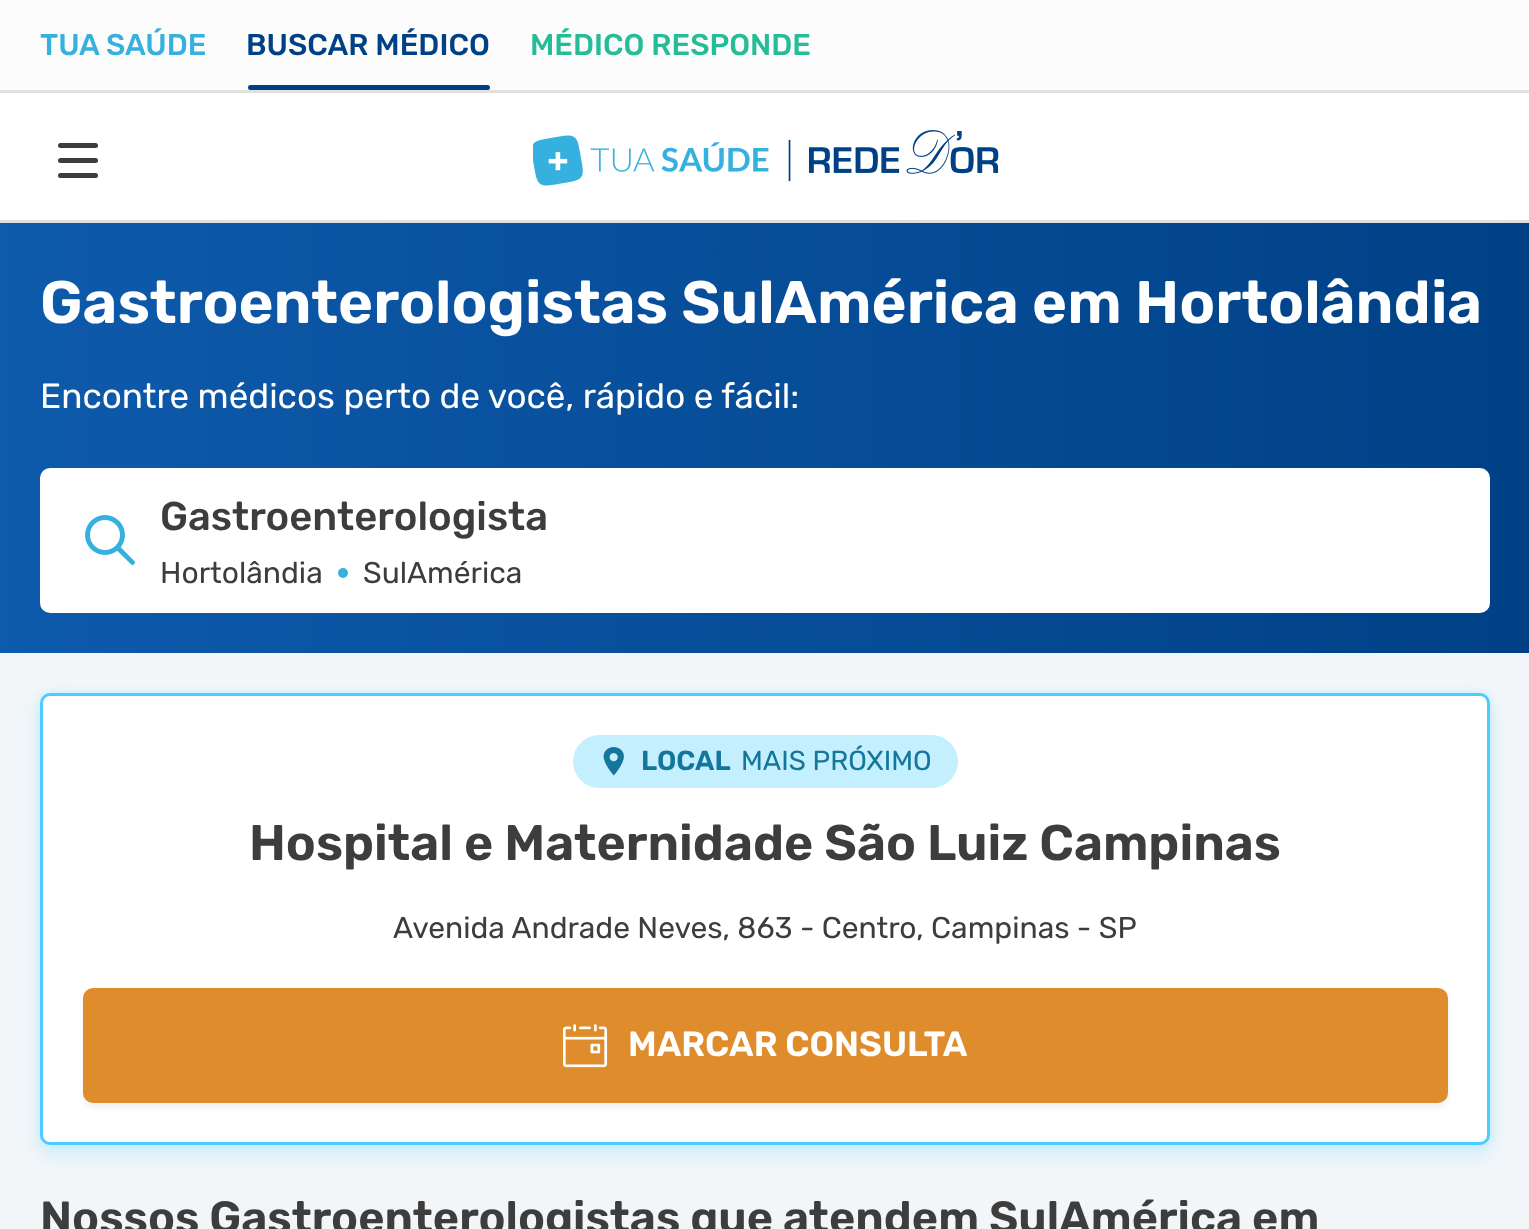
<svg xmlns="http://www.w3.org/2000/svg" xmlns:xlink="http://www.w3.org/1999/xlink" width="1529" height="1229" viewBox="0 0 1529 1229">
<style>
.cls-1{font:500 30px Rubik;fill:#36b1df}
.cls-2{font:500 30px Rubik;fill:#004186}
.cls-3{font:500 30px Rubik;fill:#24bd97}
.cls-4{font:600 60px Rubik;fill:#ffffff}
.cls-5{font:35px Rubik;fill:#ffffff}
.cls-6{font:500 40px Rubik;fill:#3d3d3d}
.cls-7{font:30px Rubik;fill:#3d3d3d}
.cls-8{font:600 27.5px Rubik;fill:#15769b}
.cls-9{font:27.5px Rubik;fill:#15769b}
.cls-10{font:600 50px Rubik;fill:#3d3d3d}
.cls-11{font:600 35px Rubik;fill:#ffffff}
.cls-12{font:600 45px Rubik;fill:#3d3d3d}
</style>
<defs>
<linearGradient id="g1" gradientUnits="userSpaceOnUse" x1="0" y1="438" x2="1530" y2="437"><stop offset="0" stop-color="#0e5aab"/><stop offset="1" stop-color="#004186"/></linearGradient>
</defs>
<rect width="100%" height="100%" fill="#ffffff"/>
<rect fill="#fcfcfc" x="0" y="0" width="1529" height="90"/>
<rect fill="#e0e0e0" x="0" y="90" width="1529" height="3"/>
<rect fill="#004186" x="248" y="85" width="242" height="5" rx="2.5"/>
<rect fill="#e0e0e0" x="0" y="220" width="1529" height="3"/>
<rect fill="#3d3d3d" x="58" y="143" width="40" height="5" rx="2.5"/>
<rect fill="#3d3d3d" x="58" y="158" width="40" height="5" rx="2.5"/>
<rect fill="#3d3d3d" x="58" y="173" width="40" height="5" rx="2.5"/>
<image xlink:href="image0.png" x="533" y="130" width="466" height="56"/>
<rect fill="url(#g1)" x="0" y="223" width="1529" height="430"/>
<rect fill="#ffffff" x="40" y="468" width="1450" height="145" rx="10"/>
<image xlink:href="image1.png" x="85" y="515" width="51" height="51"/>
<circle fill="#36b1df" cx="343" cy="573" r="5"/>
<rect fill="#f2f6f9" x="0" y="653" width="1529" height="576"/>
<rect fill="#4bceff" fill-opacity="0.2" filter="blur(10px)" x="40" y="703" width="1450" height="452" rx="10"/>
<rect fill="#4bceff" fill-opacity="0.2" filter="blur(5px)" x="40" y="693" width="1450" height="452" rx="10"/>
<rect fill="#ffffff" stroke="#4bceff" stroke-width="3" x="41.5" y="694.5" width="1447" height="449" rx="8.5"/>
<rect fill="#c4efff" x="573" y="735" width="385" height="53" rx="26.5"/>
<image xlink:href="image2.png" x="603" y="747" width="21" height="29"/>
<rect fill="#000000" fill-opacity="0.05" filter="blur(2.5px)" x="83" y="993" width="1365" height="115" rx="10"/>
<rect fill="#df8d2c" x="83" y="988" width="1365" height="115" rx="10"/>
<image xlink:href="image3.png" x="563" y="1024" width="45" height="44"/>
<text class="cls-1" x="40" y="55">TUA SAÚDE</text>
<text class="cls-2" x="246" y="55">BUSCAR MÉDICO</text>
<text class="cls-3" x="530" y="55">MÉDICO RESPONDE</text>
<text class="cls-4" x="40" y="323">Gastroenterologistas SulAmérica em Hortolândia</text>
<text class="cls-5" x="40" y="408">Encontre médicos perto de você, rápido e fácil:</text>
<text class="cls-6" x="160" y="530">Gastroenterologista</text>
<text class="cls-7" x="160" y="583">Hortolândia</text>
<text class="cls-7" x="363" y="583">SulAmérica</text>
<text class="cls-8" x="641" y="770">LOCAL</text>
<text class="cls-9" x="741" y="770">MAIS PRÓXIMO</text>
<text class="cls-10" x="249" y="860">Hospital e Maternidade São Luiz Campinas</text>
<text class="cls-7" x="393" y="938">Avenida Andrade Neves, 863 - Centro, Campinas - SP</text>
<text class="cls-11" x="628" y="1056">MARCAR CONSULTA</text>
<text class="cls-12" x="40" y="1233">Nossos Gastroenterologistas que atendem SulAmérica em</text>
</svg>
